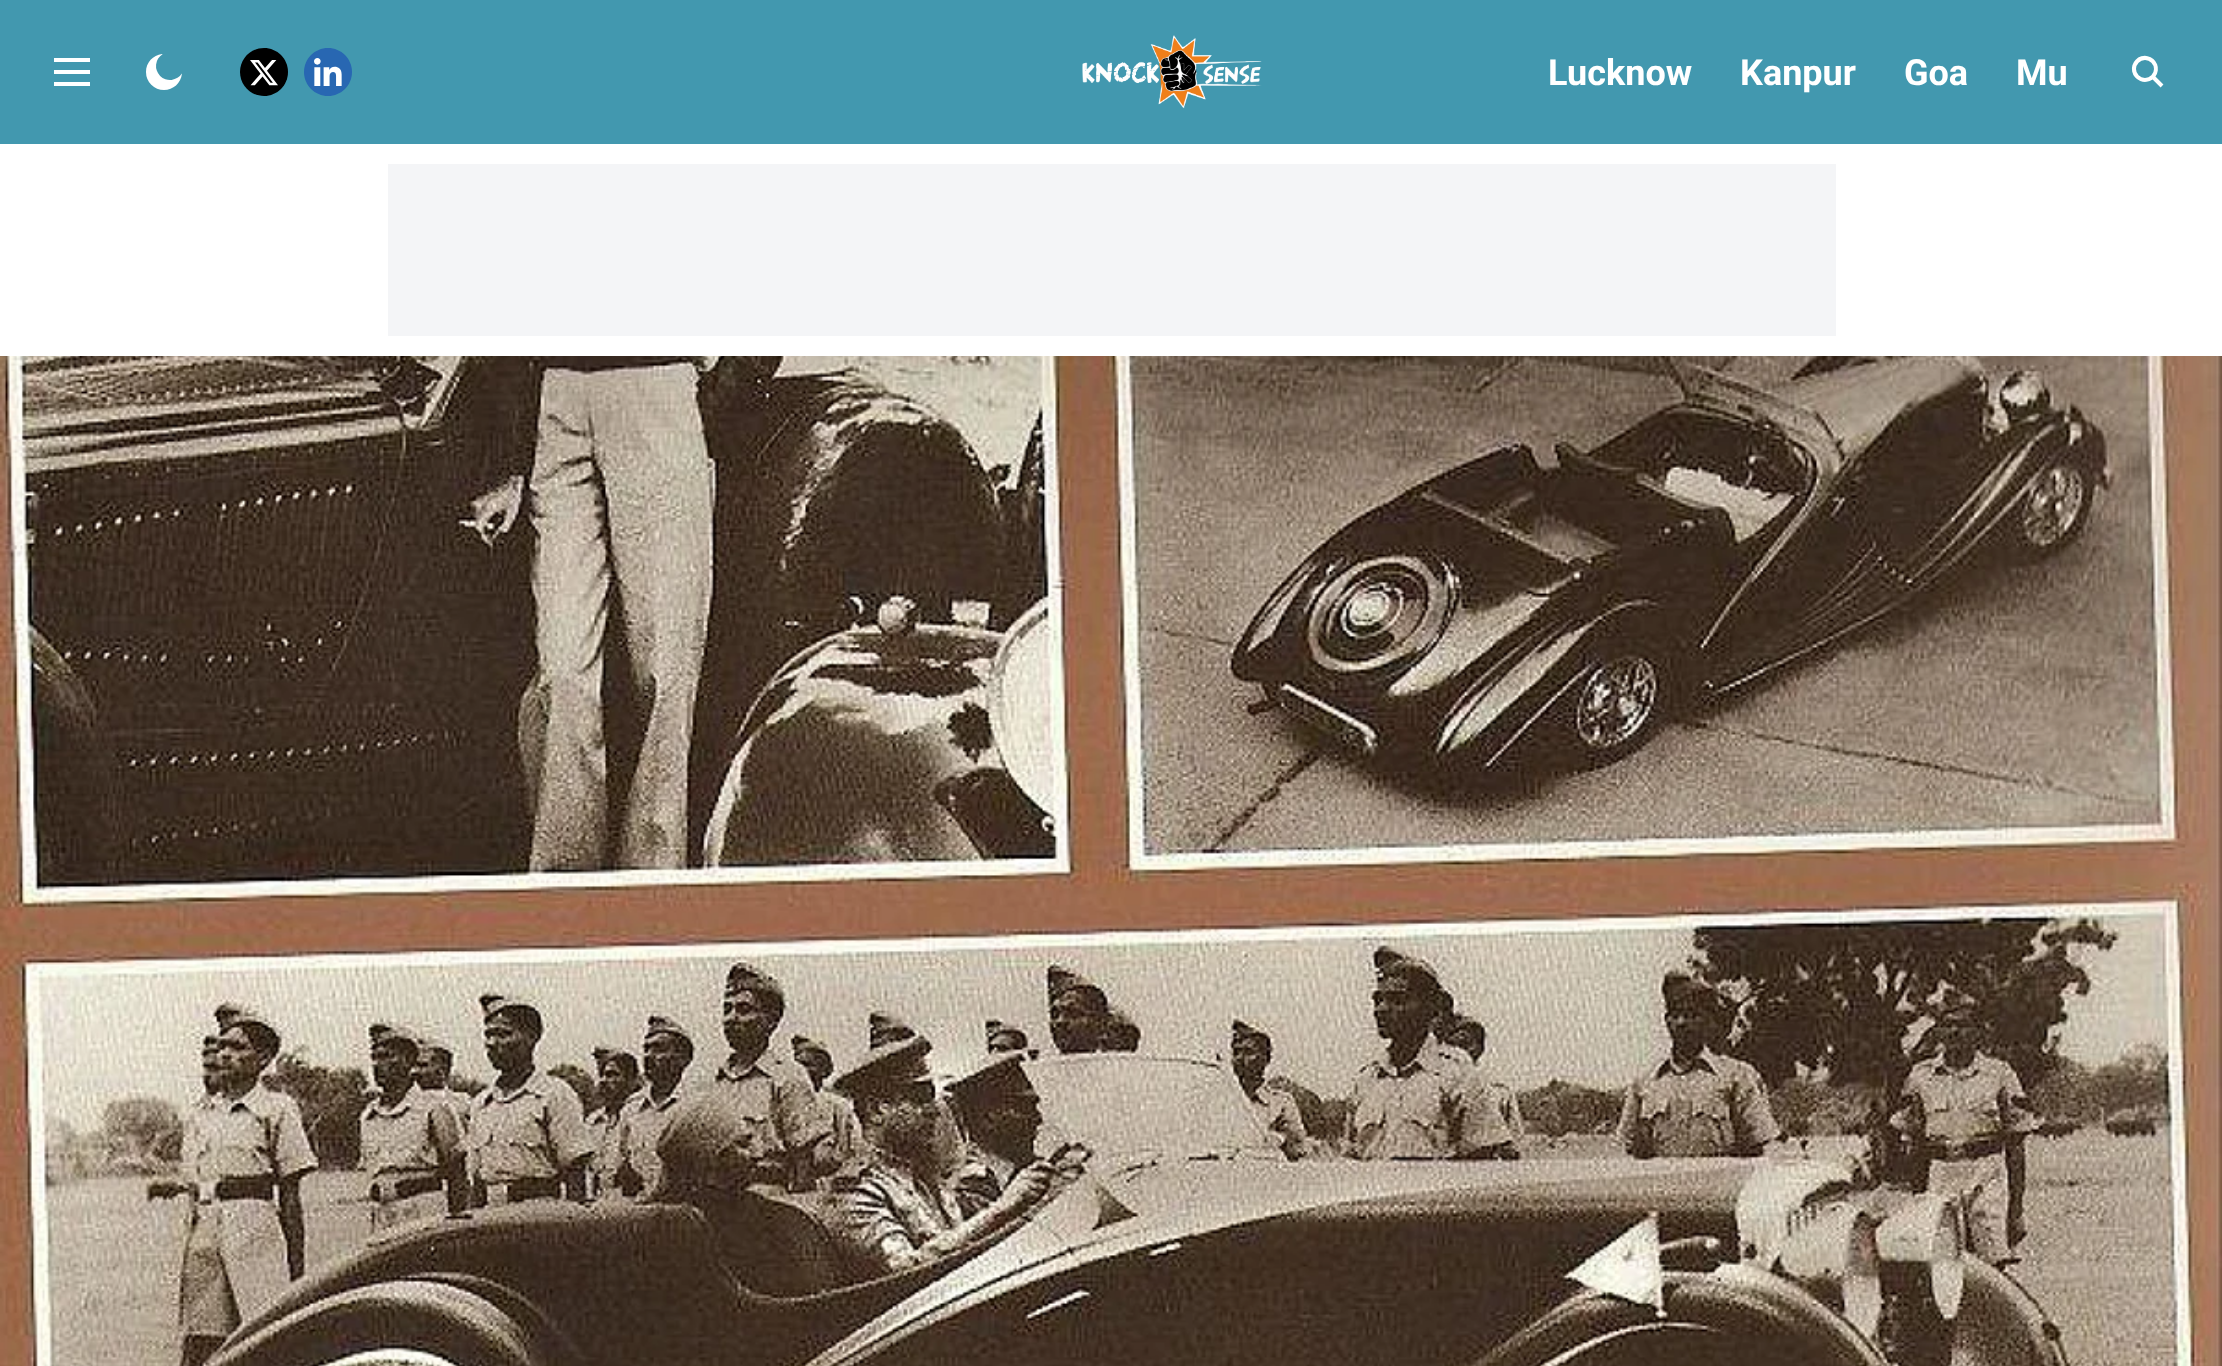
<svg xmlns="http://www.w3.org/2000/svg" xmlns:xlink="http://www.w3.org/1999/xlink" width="2222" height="1366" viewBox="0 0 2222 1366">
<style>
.cls-1{font:bold 36px Roboto;fill:#ffffff}
</style>
<rect width="100%" height="100%" fill="#ffffff"/>
<rect fill="#4298af" x="0" y="0" width="2222" height="144"/>
<image xlink:href="image0.png" x="54" y="58" width="36" height="28"/>
<image xlink:href="image1.png" x="146" y="54" width="36" height="36"/>
<image xlink:href="image2.png" x="240" y="48" width="48" height="48"/>
<image xlink:href="image3.png" x="304" y="48" width="48" height="48"/>
<image xlink:href="image4.png" x="1082" y="35" width="180" height="74"/>
<image xlink:href="image5.png" x="2131" y="55" width="33" height="33"/>
<rect fill="#f4f5f7" x="388" y="164" width="1448" height="172"/>
<image xlink:href="image6.png" x="0" y="356" width="2222" height="1010"/>
<text class="cls-1" x="1548" y="85">Lucknow</text>
<text class="cls-1" x="1740" y="85">Kanpur</text>
<text class="cls-1" x="1904" y="85">Goa</text>
<text class="cls-1" x="2016" y="85">Mu</text>
</svg>
